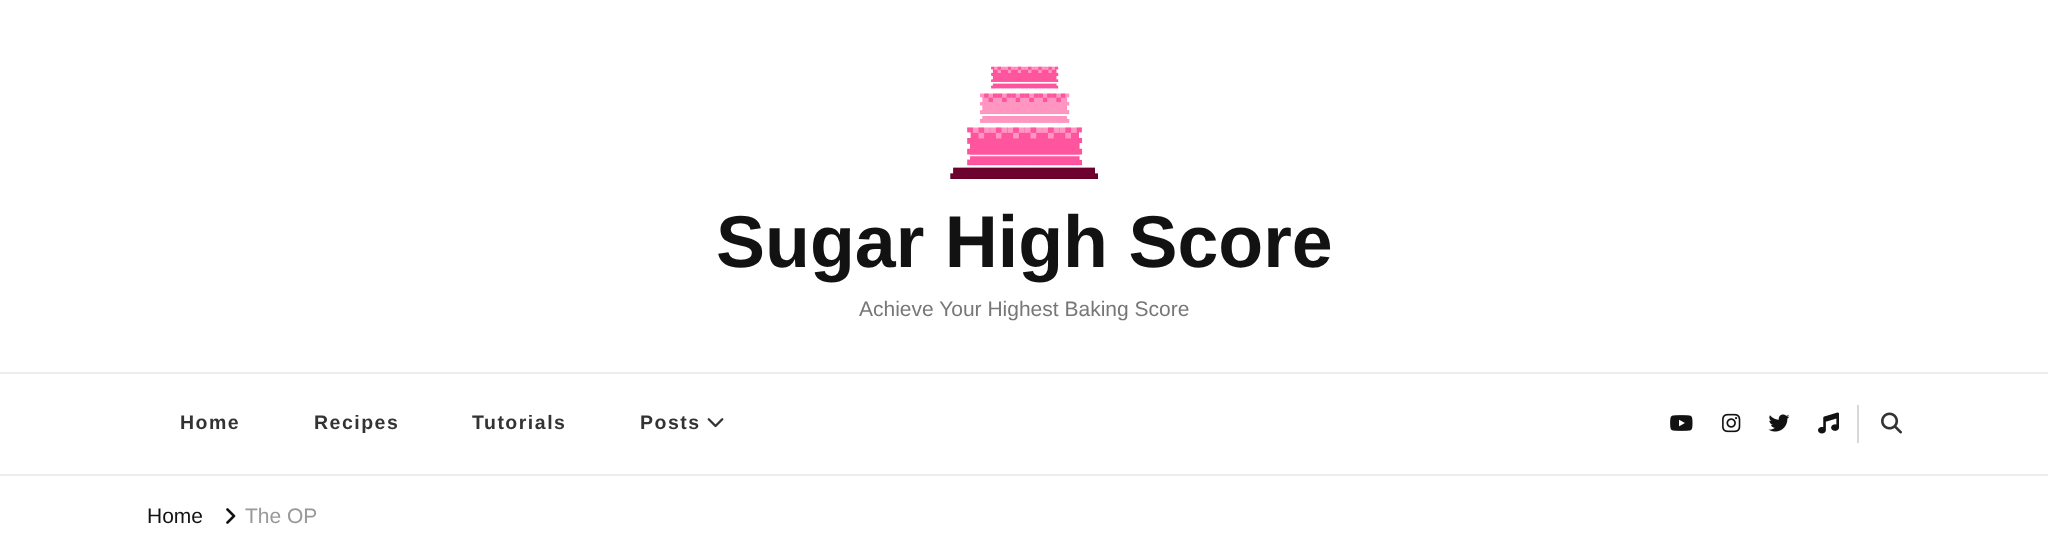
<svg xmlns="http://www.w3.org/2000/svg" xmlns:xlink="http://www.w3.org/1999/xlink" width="2048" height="544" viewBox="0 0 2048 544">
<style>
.cls-1{font:bold 73.5px Liberation Sans;fill:#121212}
.cls-2{font:21px Liberation Sans;fill:#777777}
.cls-3{font:bold 19.5px Liberation Sans;letter-spacing:1.5px;fill:#333333}
.cls-4{font:21px Liberation Sans;fill:#121212}
.cls-5{font:21px Liberation Sans;fill:#999999}
</style>
<rect width="100%" height="100%" fill="#ffffff"/>
<image xlink:href="image0.png" x="950" y="66" width="148" height="113"/>
<rect fill="#ededed" x="0" y="372" width="2048" height="2"/>
<rect fill="#ededed" x="0" y="474" width="2048" height="2"/>
<image xlink:href="image1.png" x="707" y="418" width="17" height="10"/>
<image xlink:href="image2.png" x="1670" y="415" width="23" height="16"/>
<image xlink:href="image3.png" x="1722" y="413" width="19" height="20"/>
<image xlink:href="image4.png" x="1768" y="414" width="22" height="18"/>
<image xlink:href="image5.png" x="1818" y="412" width="21" height="22"/>
<rect fill="#d9d9d9" x="1857" y="405" width="2" height="38"/>
<image xlink:href="image6.png" x="1881" y="412" width="21" height="22"/>
<image xlink:href="image7.png" x="226" y="508" width="10" height="16"/>
<text class="cls-1" x="716" y="267">Sugar High Score</text>
<text class="cls-2" x="859" y="316">Achieve Your Highest Baking Score</text>
<text class="cls-3" x="180" y="429">Home</text>
<text class="cls-3" x="314" y="429">Recipes</text>
<text class="cls-3" x="472" y="429">Tutorials</text>
<text class="cls-3" x="640" y="429">Posts</text>
<text class="cls-4" x="147" y="523">Home</text>
<text class="cls-5" x="245" y="523">The OP</text>
</svg>
